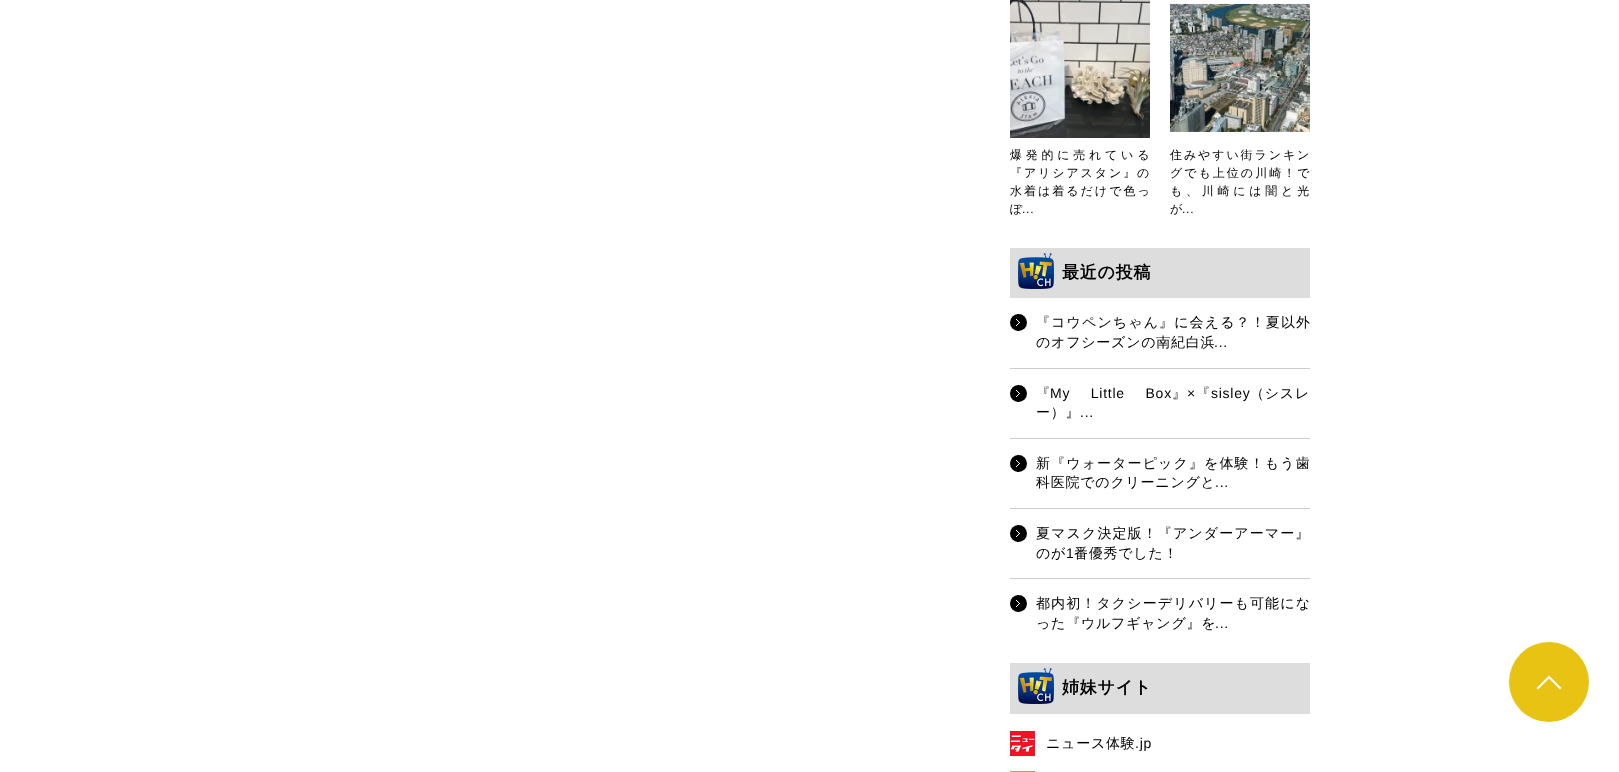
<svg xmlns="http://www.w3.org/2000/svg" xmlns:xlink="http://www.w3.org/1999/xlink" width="1619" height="772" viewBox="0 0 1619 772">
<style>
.cls-1{font:500 12px WenQuanYi Zen Hei;letter-spacing:3.75px;fill:#000000}
.cls-2{font:500 12px WenQuanYi Zen Hei;letter-spacing:1.9px;fill:#000000}
.cls-3{font:500 12px WenQuanYi Zen Hei;letter-spacing:2px;fill:#000000}
.cls-4{font:500 12px WenQuanYi Zen Hei;letter-spacing:0.75px;fill:#000000}
.cls-5{font:12px Liberation Sans;letter-spacing:0.75px;fill:#000000}
.cls-6{font:bold 17px WenQuanYi Zen Hei;letter-spacing:0.75px;fill:#000000}
.cls-7{font:500 14px WenQuanYi Zen Hei;letter-spacing:1.1px;fill:#000000}
.cls-8{font:500 14px WenQuanYi Zen Hei;letter-spacing:0.75px;fill:#000000}
.cls-9{font:14px Liberation Sans;letter-spacing:0.75px;fill:#000000}
</style>
<rect width="100%" height="100%" fill="#ffffff"/>
<image xlink:href="image0.png" x="1010" y="0" width="140" height="138"/>
<image xlink:href="image1.png" x="1170" y="3" width="140" height="129"/>
<rect fill="#dddddd" x="1010" y="248" width="300" height="50"/>
<image xlink:href="image2.png" x="1018" y="253" width="36" height="36"/>
<circle fill="#000000" cx="1018.5" cy="322.5" r="8.5"/>
<image xlink:href="image3.png" x="1016" y="319" width="4" height="7"/>
<rect fill="#cccccc" x="1010" y="368" width="300" height="1"/>
<circle fill="#000000" cx="1018.5" cy="393.5" r="8.5"/>
<image xlink:href="image3.png" x="1016" y="390" width="4" height="7"/>
<rect fill="#cccccc" x="1010" y="438" width="300" height="1"/>
<circle fill="#000000" cx="1018.5" cy="463.5" r="8.5"/>
<image xlink:href="image3.png" x="1016" y="460" width="4" height="7"/>
<rect fill="#cccccc" x="1010" y="508" width="300" height="1"/>
<circle fill="#000000" cx="1018.5" cy="533.5" r="8.5"/>
<image xlink:href="image3.png" x="1016" y="530" width="4" height="7"/>
<rect fill="#cccccc" x="1010" y="578" width="300" height="1"/>
<circle fill="#000000" cx="1018.5" cy="603.5" r="8.5"/>
<image xlink:href="image3.png" x="1016" y="600" width="4" height="7"/>
<rect fill="#dddddd" x="1010" y="663" width="300" height="51"/>
<image xlink:href="image2.png" x="1018" y="668" width="36" height="36"/>
<image xlink:href="image4.png" x="1010" y="731" width="25" height="25"/>
<rect fill="#fa7b78" x="1010" y="771" width="25" height="1"/>
<circle fill="#e9c313" cx="1549" cy="682" r="40"/>
<path fill="#ffffff" fill-rule="evenodd" d="M1561.5 688L1560 689.5L1549 678.5L1538 689.5L1536.5 688L1549 675.5Z"/>
<text class="cls-1" x="1010" y="159">爆発的に売れている</text>
<text class="cls-2" x="1010" y="177">『アリシアスタン』の</text>
<text class="cls-3" x="1010" y="195">水着は着るだけで色っ</text>
<text class="cls-4" x="1010" y="213">ぽ</text>
<text class="cls-5" x="1022" y="213">...</text>
<text class="cls-2" x="1170" y="159">住みやすい街ランキン</text>
<text class="cls-3" x="1170" y="177">グでも上位の川崎！で</text>
<text class="cls-1" x="1170" y="195">も、川崎には闇と光</text>
<text class="cls-4" x="1170" y="213">が</text>
<text class="cls-5" x="1182" y="213">...</text>
<text class="cls-6" x="1062" y="278">最近の投稿</text>
<text class="cls-7" x="1036" y="327">『コウペンちゃん』に会える？！夏以外</text>
<text class="cls-8" x="1036" y="347">のオフシーズンの南紀白浜</text>
<text class="cls-9" x="1214" y="347">...</text>
<text class="cls-8" x="1036" y="398">『</text>
<text class="cls-9" x="1050" y="398" word-spacing="16">My Little Box</text>
<text class="cls-8" x="1172" y="398">』</text>
<text class="cls-9" x="1187" y="398">×</text>
<text class="cls-8" x="1196" y="398">『</text>
<text class="cls-9" x="1211" y="398">sisley</text>
<text class="cls-8" x="1250" y="398">（シスレ</text>
<text class="cls-8" x="1036" y="417">ー）』</text>
<text class="cls-9" x="1080" y="417">...</text>
<text class="cls-7" x="1036" y="468">新『ウォーターピック』を体験！もう歯</text>
<text class="cls-8" x="1036" y="487">科医院でのクリーニングと</text>
<text class="cls-9" x="1215" y="487">...</text>
<text class="cls-7" x="1036" y="538">夏マスク決定版！『アンダーアーマー』</text>
<text class="cls-8" x="1036" y="558">のが</text>
<text class="cls-9" x="1066" y="558">1</text>
<text class="cls-8" x="1074" y="558">番優秀でした！</text>
<text class="cls-7" x="1036" y="608">都内初！タクシーデリバリーも可能にな</text>
<text class="cls-8" x="1036" y="628">った『ウルフギャング』を</text>
<text class="cls-9" x="1215" y="628">...</text>
<text class="cls-6" x="1062" y="693">姉妹サイト</text>
<text class="cls-8" x="1046" y="748">ニュース体験</text>
<text class="cls-9" x="1135" y="748">.jp</text>
</svg>
